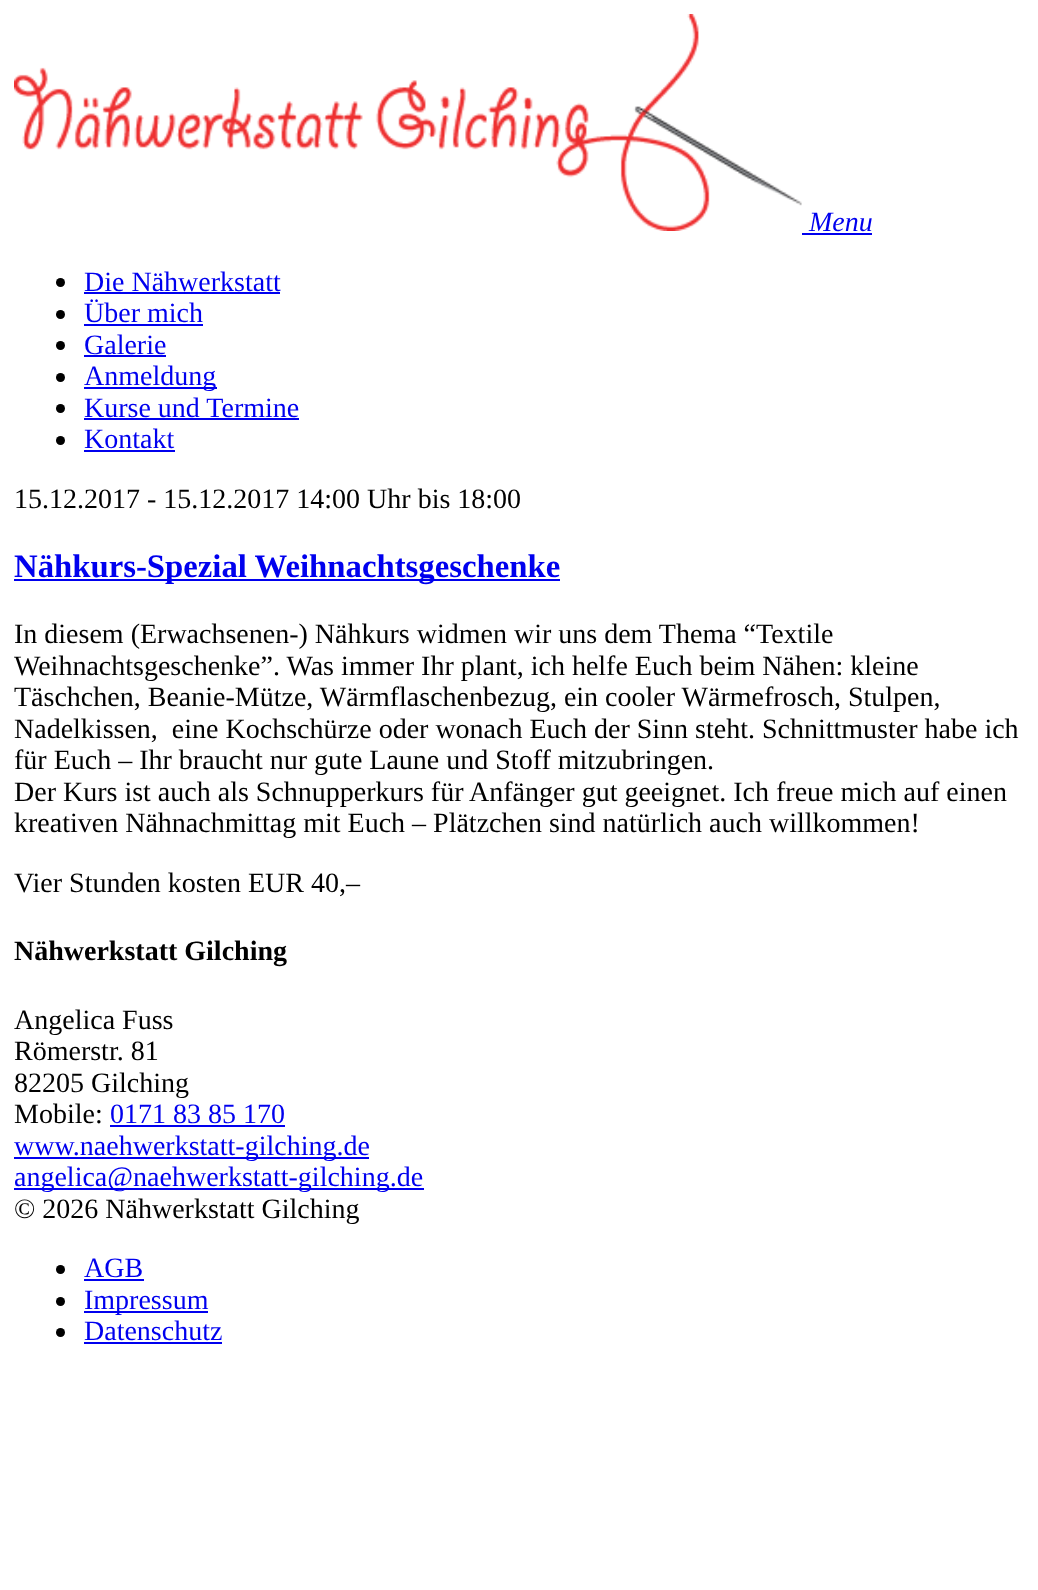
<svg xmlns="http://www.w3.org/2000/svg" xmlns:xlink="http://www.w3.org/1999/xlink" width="1038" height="1590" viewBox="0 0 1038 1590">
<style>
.cls-1{font:italic 28px Liberation Serif;fill:#0000ee}
.cls-2{font:28px Liberation Serif;fill:#0000ee}
.cls-3{font:28px Liberation Serif;fill:#000000}
.cls-4{font:bold 32.75px Liberation Serif;fill:#0000ee}
.cls-5{font:bold 28px Liberation Serif;fill:#000000}
</style>
<rect width="100%" height="100%" fill="#ffffff"/>
<image xlink:href="image0.png" x="14" y="14" width="788" height="217"/>
<rect fill="#0000ee" x="802" y="233" width="70" height="2"/>
<circle fill="#000000" cx="60.5" cy="282.5" r="4.5"/>
<rect fill="#0000ee" x="84" y="292" width="196" height="2"/>
<circle fill="#000000" cx="60.5" cy="314.5" r="4.5"/>
<rect fill="#0000ee" x="84" y="324" width="119" height="2"/>
<circle fill="#000000" cx="60.5" cy="345.5" r="4.5"/>
<rect fill="#0000ee" x="84" y="355" width="82" height="2"/>
<circle fill="#000000" cx="60.5" cy="377.5" r="4.5"/>
<rect fill="#0000ee" x="84" y="387" width="133" height="2"/>
<circle fill="#000000" cx="60.5" cy="408.5" r="4.5"/>
<rect fill="#0000ee" x="84" y="418" width="215" height="2"/>
<circle fill="#000000" cx="60.5" cy="440.5" r="4.5"/>
<rect fill="#0000ee" x="84" y="450" width="91" height="2"/>
<rect fill="#0000ee" x="14" y="579" width="546" height="2"/>
<rect fill="#0000ee" x="110" y="1125" width="175" height="2"/>
<rect fill="#0000ee" x="14" y="1157" width="355" height="2"/>
<rect fill="#0000ee" x="14" y="1188" width="410" height="2"/>
<circle fill="#000000" cx="60.5" cy="1269.5" r="4.5"/>
<rect fill="#0000ee" x="84" y="1279" width="60" height="2"/>
<circle fill="#000000" cx="60.5" cy="1301.5" r="4.5"/>
<rect fill="#0000ee" x="84" y="1311" width="124" height="2"/>
<circle fill="#000000" cx="60.5" cy="1332.5" r="4.5"/>
<rect fill="#0000ee" x="84" y="1342" width="138" height="2"/>
<text class="cls-1" x="809" y="231">Menu</text>
<text class="cls-2"><tspan x="84" y="291">Die Nähwerkstatt</tspan><tspan x="84" y="322">Über mich</tspan><tspan x="84" y="354">Galerie</tspan><tspan x="84" y="385">Anmeldung</tspan><tspan x="84" y="417">Kurse und Termine</tspan><tspan x="84" y="448">Kontakt</tspan></text>
<text class="cls-3" x="14" y="508">15.12.2017 - 15.12.2017 14:00 Uhr bis 18:00</text>
<text class="cls-4" x="14" y="577">Nähkurs-Spezial Weihnachtsgeschenke</text>
<text class="cls-3" xml:space="preserve"><tspan x="14" y="643">In diesem (Erwachsenen-) Nähkurs widmen wir uns dem Thema “Textile</tspan><tspan x="14" y="675">Weihnachtsgeschenke”. Was immer Ihr plant, ich helfe Euch beim Nähen: kleine</tspan><tspan x="14" y="706">Täschchen, Beanie-Mütze, Wärmflaschenbezug, ein cooler Wärmefrosch, Stulpen,</tspan><tspan x="14" y="738">Nadelkissen,  eine Kochschürze oder wonach Euch der Sinn steht. Schnittmuster habe ich</tspan><tspan x="14" y="769">für Euch – Ihr braucht nur gute Laune und Stoff mitzubringen.</tspan><tspan x="14" y="801">Der Kurs ist auch als Schnupperkurs für Anfänger gut geeignet. Ich freue mich auf einen</tspan><tspan x="14" y="832">kreativen Nähnachmittag mit Euch – Plätzchen sind natürlich auch willkommen!</tspan></text>
<text class="cls-3" x="14" y="892">Vier Stunden kosten EUR 40,–</text>
<text class="cls-5" x="14" y="960">Nähwerkstatt Gilching</text>
<text class="cls-3"><tspan x="14" y="1029">Angelica Fuss</tspan><tspan x="14" y="1060">Römerstr. 81</tspan><tspan x="14" y="1092">82205 Gilching</tspan><tspan x="14" y="1123">Mobile:</tspan></text>
<text class="cls-2" x="110" y="1123">0171 83 85 170</text>
<text class="cls-2"><tspan x="14" y="1155">www.naehwerkstatt-gilching.de</tspan><tspan x="14" y="1186">angelica@naehwerkstatt-gilching.de</tspan></text>
<text class="cls-3" x="14" y="1218">© 2026 Nähwerkstatt Gilching</text>
<text class="cls-2"><tspan x="84" y="1277">AGB</tspan><tspan x="84" y="1309">Impressum</tspan><tspan x="84" y="1340">Datenschutz</tspan></text>
</svg>
